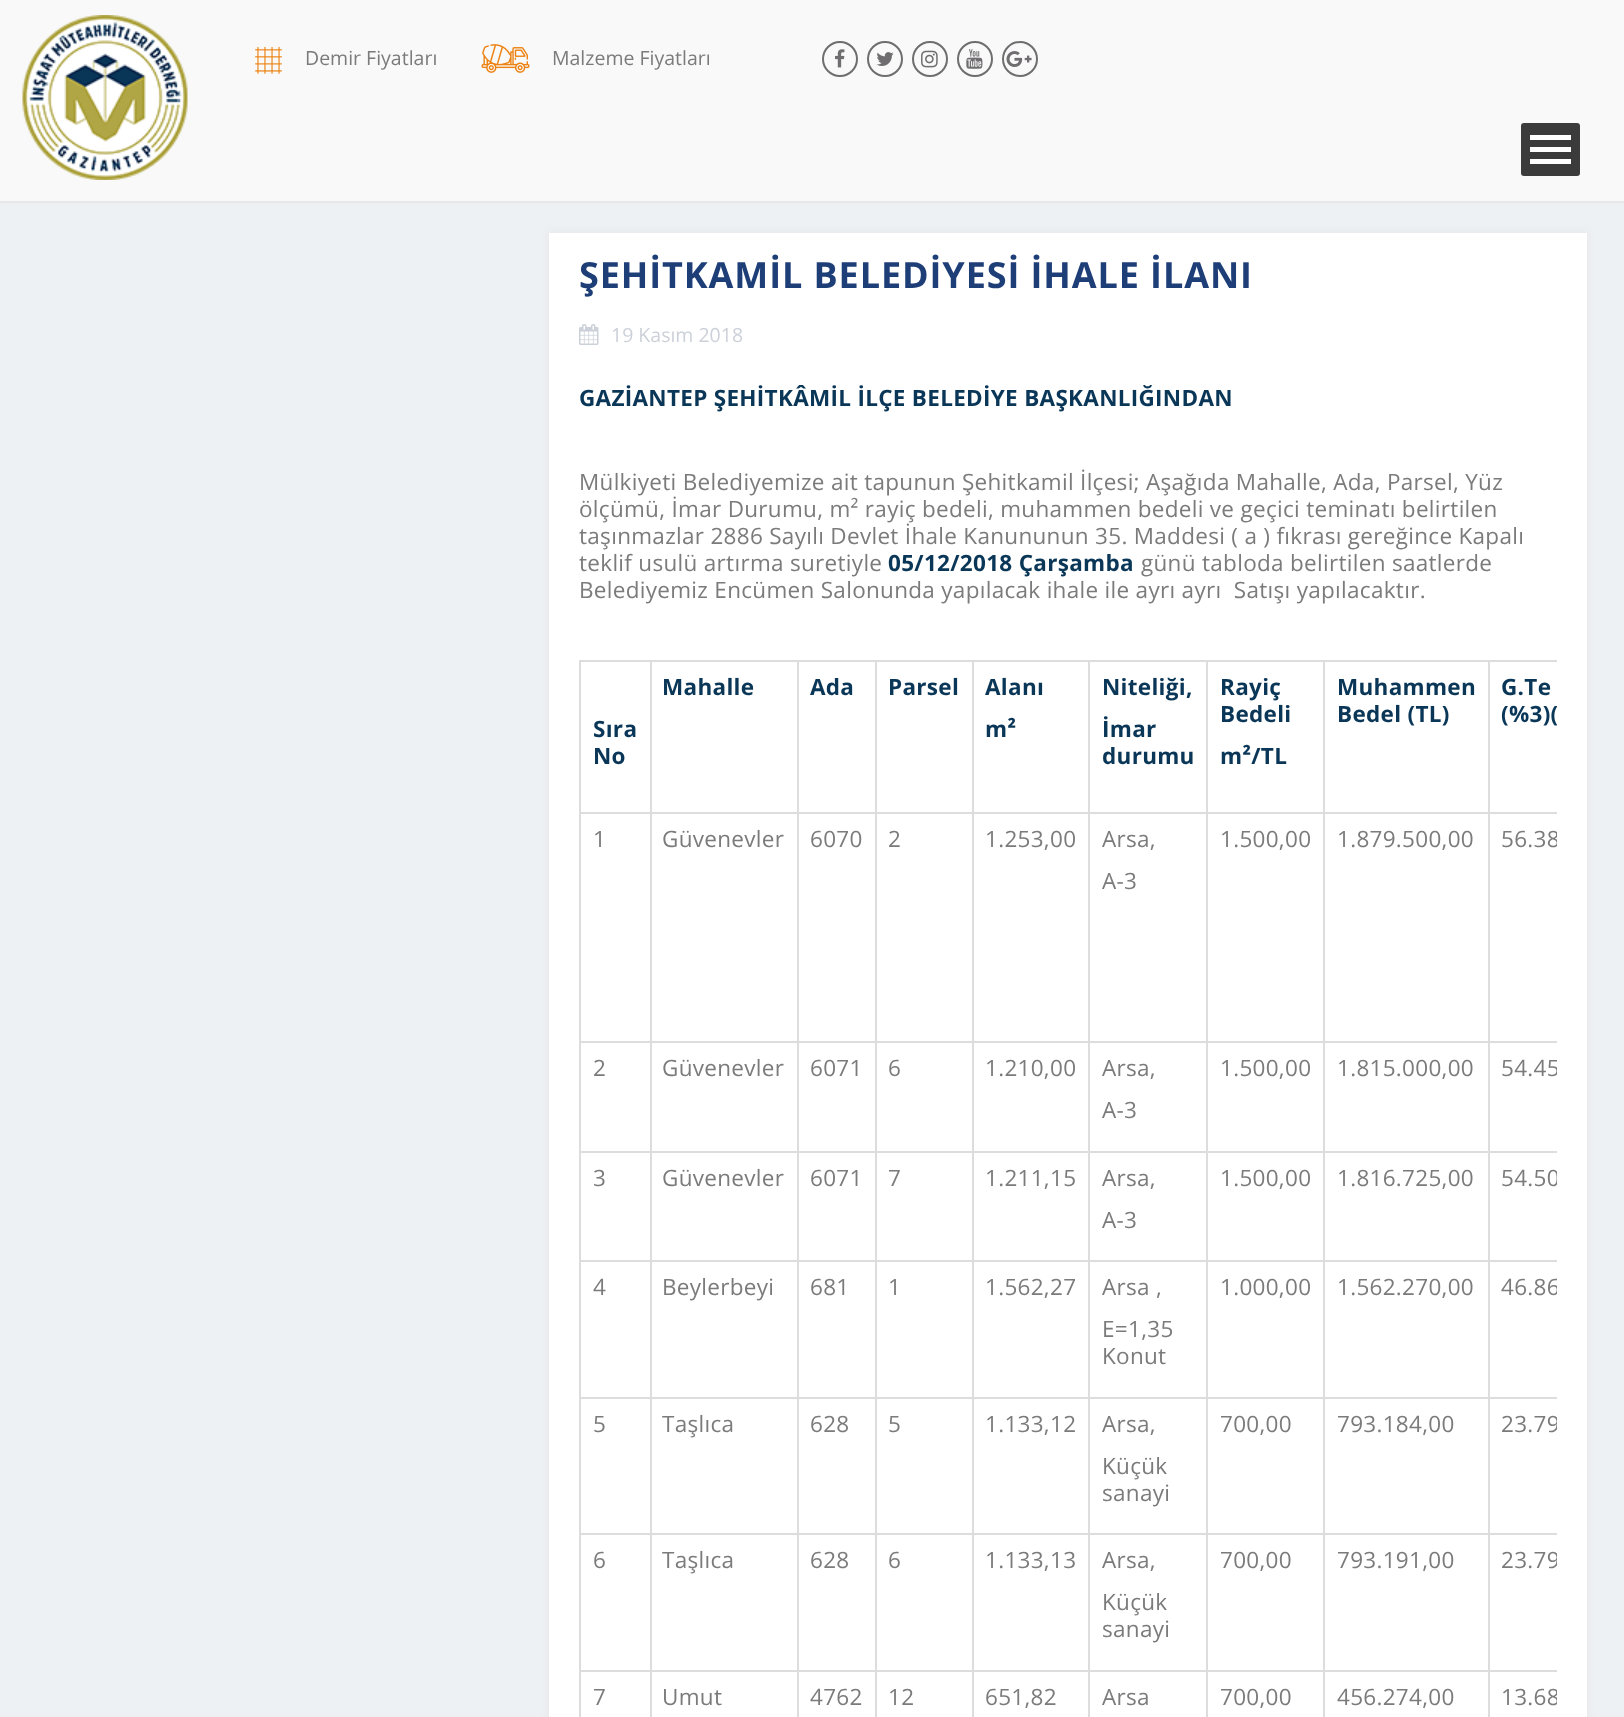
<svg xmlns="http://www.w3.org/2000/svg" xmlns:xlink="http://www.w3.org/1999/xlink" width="1624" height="1717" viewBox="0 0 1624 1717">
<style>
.cls-1{font:19.5px Open Sans;fill:#7b7b7b}
.cls-2{font:bold 36px Open Sans;letter-spacing:0.9px;fill:#1e3e77}
.cls-3{font:19.5px Open Sans;fill:#ccd1d9}
.cls-4{font:bold 22.5px Open Sans;letter-spacing:0.3px;fill:#0a3657}
.cls-5{font:22.5px Open Sans;letter-spacing:0.3px;fill:#7b7b7b}
</style>
<defs>
<clipPath id="clip1"><rect x="579" y="660" width="978" height="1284"/></clipPath>
</defs>
<rect width="100%" height="100%" fill="#eef1f4"/>
<rect fill="#f9f9f9" x="0" y="0" width="1624" height="201"/>
<rect fill="#e7e7e7" x="0" y="201" width="1624" height="2"/>
<image xlink:href="image0.png" x="22" y="15" width="166" height="165"/>
<image xlink:href="image1.png" x="255" y="46" width="27" height="28"/>
<image xlink:href="image2.png" x="481" y="44" width="49" height="29"/>
<circle fill="none" stroke="#6f6d6f" stroke-width="2" cx="840" cy="59" r="17"/>
<image xlink:href="image3.png" x="835" y="49" width="10" height="19"/>
<circle fill="none" stroke="#6f6d6f" stroke-width="2" cx="885" cy="59" r="17"/>
<image xlink:href="image4.png" x="876" y="52" width="18" height="14"/>
<circle fill="none" stroke="#6f6d6f" stroke-width="2" cx="930" cy="59" r="17"/>
<image xlink:href="image5.png" x="921" y="50" width="17" height="18"/>
<circle fill="none" stroke="#6f6d6f" stroke-width="2" cx="975" cy="59" r="17"/>
<image xlink:href="image6.png" x="966" y="49" width="17" height="20"/>
<circle fill="none" stroke="#6f6d6f" stroke-width="2" cx="1020" cy="59" r="17"/>
<image xlink:href="image7.png" x="1006" y="51" width="26" height="16"/>
<rect fill="#3b3b3b" x="1521" y="123" width="59" height="53" rx="3"/>
<rect fill="#ffffff" x="1530" y="159" width="41" height="5"/>
<rect fill="#ffffff" x="1530" y="147" width="41" height="5"/>
<rect fill="#ffffff" x="1530" y="135" width="41" height="5"/>
<rect fill="#e2e3e4" filter="blur(4px)" x="549" y="233" width="1038" height="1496"/>
<rect fill="#ffffff" x="549" y="233" width="1038" height="1484"/>
<image xlink:href="image8.png" x="579" y="324" width="20" height="21"/>
<rect fill="#dddddd" x="579" y="660" width="978" height="2"/>
<rect fill="#dddddd" x="579" y="660" width="2" height="1057"/>
<rect fill="#dddddd" x="1488" y="812" width="69" height="2"/>
<rect fill="#dddddd" x="1488" y="1041" width="69" height="2"/>
<rect fill="#dddddd" x="1488" y="1151" width="69" height="2"/>
<rect fill="#dddddd" x="1488" y="1260" width="69" height="2"/>
<rect fill="#dddddd" x="1488" y="1397" width="69" height="2"/>
<rect fill="#dddddd" x="1488" y="1533" width="69" height="2"/>
<rect fill="#dddddd" x="1488" y="1670" width="69" height="2"/>
<rect fill="#dddddd" x="1488" y="1670" width="2" height="47"/>
<rect fill="#dddddd" x="1323" y="1670" width="167" height="2"/>
<rect fill="#dddddd" x="1488" y="1533" width="2" height="138"/>
<rect fill="#dddddd" x="1323" y="1533" width="167" height="2"/>
<rect fill="#dddddd" x="1488" y="1397" width="2" height="138"/>
<rect fill="#dddddd" x="1323" y="1397" width="167" height="2"/>
<rect fill="#dddddd" x="1488" y="1260" width="2" height="138"/>
<rect fill="#dddddd" x="1323" y="1260" width="167" height="2"/>
<rect fill="#dddddd" x="1488" y="1151" width="2" height="111"/>
<rect fill="#dddddd" x="1323" y="1151" width="167" height="2"/>
<rect fill="#dddddd" x="1488" y="1041" width="2" height="111"/>
<rect fill="#dddddd" x="1323" y="1041" width="167" height="2"/>
<rect fill="#dddddd" x="1488" y="812" width="2" height="231"/>
<rect fill="#dddddd" x="1323" y="812" width="167" height="2"/>
<rect fill="#dddddd" x="1323" y="1670" width="2" height="47"/>
<rect fill="#dddddd" x="1206" y="1670" width="119" height="2"/>
<rect fill="#dddddd" x="1323" y="1533" width="2" height="138"/>
<rect fill="#dddddd" x="1206" y="1533" width="119" height="2"/>
<rect fill="#dddddd" x="1323" y="1397" width="2" height="138"/>
<rect fill="#dddddd" x="1206" y="1397" width="119" height="2"/>
<rect fill="#dddddd" x="1323" y="1260" width="2" height="138"/>
<rect fill="#dddddd" x="1206" y="1260" width="119" height="2"/>
<rect fill="#dddddd" x="1323" y="1151" width="2" height="111"/>
<rect fill="#dddddd" x="1206" y="1151" width="119" height="2"/>
<rect fill="#dddddd" x="1323" y="1041" width="2" height="111"/>
<rect fill="#dddddd" x="1206" y="1041" width="119" height="2"/>
<rect fill="#dddddd" x="1323" y="812" width="2" height="231"/>
<rect fill="#dddddd" x="1206" y="812" width="119" height="2"/>
<rect fill="#dddddd" x="1206" y="1670" width="2" height="47"/>
<rect fill="#dddddd" x="1088" y="1670" width="120" height="2"/>
<rect fill="#dddddd" x="1206" y="1533" width="2" height="138"/>
<rect fill="#dddddd" x="1088" y="1533" width="120" height="2"/>
<rect fill="#dddddd" x="1206" y="1397" width="2" height="138"/>
<rect fill="#dddddd" x="1088" y="1397" width="120" height="2"/>
<rect fill="#dddddd" x="1206" y="1260" width="2" height="138"/>
<rect fill="#dddddd" x="1088" y="1260" width="120" height="2"/>
<rect fill="#dddddd" x="1206" y="1151" width="2" height="111"/>
<rect fill="#dddddd" x="1088" y="1151" width="120" height="2"/>
<rect fill="#dddddd" x="1206" y="1041" width="2" height="111"/>
<rect fill="#dddddd" x="1088" y="1041" width="120" height="2"/>
<rect fill="#dddddd" x="1206" y="812" width="2" height="231"/>
<rect fill="#dddddd" x="1088" y="812" width="120" height="2"/>
<rect fill="#dddddd" x="1088" y="1670" width="2" height="47"/>
<rect fill="#dddddd" x="972" y="1670" width="117" height="2"/>
<rect fill="#dddddd" x="1088" y="1533" width="2" height="138"/>
<rect fill="#dddddd" x="972" y="1533" width="117" height="2"/>
<rect fill="#dddddd" x="1088" y="1397" width="2" height="138"/>
<rect fill="#dddddd" x="972" y="1397" width="117" height="2"/>
<rect fill="#dddddd" x="1088" y="1260" width="2" height="138"/>
<rect fill="#dddddd" x="972" y="1260" width="117" height="2"/>
<rect fill="#dddddd" x="1088" y="1151" width="2" height="111"/>
<rect fill="#dddddd" x="972" y="1151" width="117" height="2"/>
<rect fill="#dddddd" x="1088" y="1041" width="2" height="111"/>
<rect fill="#dddddd" x="972" y="1041" width="117" height="2"/>
<rect fill="#dddddd" x="1088" y="812" width="2" height="231"/>
<rect fill="#dddddd" x="972" y="812" width="117" height="2"/>
<rect fill="#dddddd" x="972" y="1670" width="2" height="47"/>
<rect fill="#dddddd" x="875" y="1670" width="99" height="2"/>
<rect fill="#dddddd" x="972" y="1533" width="2" height="138"/>
<rect fill="#dddddd" x="875" y="1533" width="99" height="2"/>
<rect fill="#dddddd" x="972" y="1397" width="2" height="138"/>
<rect fill="#dddddd" x="875" y="1397" width="99" height="2"/>
<rect fill="#dddddd" x="972" y="1260" width="2" height="138"/>
<rect fill="#dddddd" x="875" y="1260" width="99" height="2"/>
<rect fill="#dddddd" x="972" y="1151" width="2" height="111"/>
<rect fill="#dddddd" x="875" y="1151" width="99" height="2"/>
<rect fill="#dddddd" x="972" y="1041" width="2" height="111"/>
<rect fill="#dddddd" x="875" y="1041" width="99" height="2"/>
<rect fill="#dddddd" x="972" y="812" width="2" height="231"/>
<rect fill="#dddddd" x="875" y="812" width="99" height="2"/>
<rect fill="#dddddd" x="875" y="1670" width="2" height="47"/>
<rect fill="#dddddd" x="797" y="1670" width="79" height="2"/>
<rect fill="#dddddd" x="875" y="1533" width="2" height="138"/>
<rect fill="#dddddd" x="797" y="1533" width="79" height="2"/>
<rect fill="#dddddd" x="875" y="1397" width="2" height="138"/>
<rect fill="#dddddd" x="797" y="1397" width="79" height="2"/>
<rect fill="#dddddd" x="875" y="1260" width="2" height="138"/>
<rect fill="#dddddd" x="797" y="1260" width="79" height="2"/>
<rect fill="#dddddd" x="875" y="1151" width="2" height="111"/>
<rect fill="#dddddd" x="797" y="1151" width="79" height="2"/>
<rect fill="#dddddd" x="875" y="1041" width="2" height="111"/>
<rect fill="#dddddd" x="797" y="1041" width="79" height="2"/>
<rect fill="#dddddd" x="875" y="812" width="2" height="231"/>
<rect fill="#dddddd" x="797" y="812" width="79" height="2"/>
<rect fill="#dddddd" x="797" y="1670" width="2" height="47"/>
<rect fill="#dddddd" x="650" y="1670" width="148" height="2"/>
<rect fill="#dddddd" x="797" y="1533" width="2" height="138"/>
<rect fill="#dddddd" x="650" y="1533" width="148" height="2"/>
<rect fill="#dddddd" x="797" y="1397" width="2" height="138"/>
<rect fill="#dddddd" x="650" y="1397" width="148" height="2"/>
<rect fill="#dddddd" x="797" y="1260" width="2" height="138"/>
<rect fill="#dddddd" x="650" y="1260" width="148" height="2"/>
<rect fill="#dddddd" x="797" y="1151" width="2" height="111"/>
<rect fill="#dddddd" x="650" y="1151" width="148" height="2"/>
<rect fill="#dddddd" x="797" y="1041" width="2" height="111"/>
<rect fill="#dddddd" x="650" y="1041" width="148" height="2"/>
<rect fill="#dddddd" x="797" y="812" width="2" height="231"/>
<rect fill="#dddddd" x="650" y="812" width="148" height="2"/>
<rect fill="#dddddd" x="650" y="1670" width="2" height="47"/>
<rect fill="#dddddd" x="579" y="1670" width="72" height="2"/>
<rect fill="#dddddd" x="650" y="1533" width="2" height="138"/>
<rect fill="#dddddd" x="579" y="1533" width="72" height="2"/>
<rect fill="#dddddd" x="650" y="1397" width="2" height="138"/>
<rect fill="#dddddd" x="579" y="1397" width="72" height="2"/>
<rect fill="#dddddd" x="650" y="1260" width="2" height="138"/>
<rect fill="#dddddd" x="579" y="1260" width="72" height="2"/>
<rect fill="#dddddd" x="650" y="1151" width="2" height="111"/>
<rect fill="#dddddd" x="579" y="1151" width="72" height="2"/>
<rect fill="#dddddd" x="650" y="1041" width="2" height="111"/>
<rect fill="#dddddd" x="579" y="1041" width="72" height="2"/>
<rect fill="#dddddd" x="650" y="812" width="2" height="231"/>
<rect fill="#dddddd" x="579" y="812" width="72" height="2"/>
<rect fill="#dddddd" x="650" y="660" width="2" height="153"/>
<rect fill="#dddddd" x="797" y="660" width="2" height="153"/>
<rect fill="#dddddd" x="875" y="660" width="2" height="153"/>
<rect fill="#dddddd" x="972" y="660" width="2" height="153"/>
<rect fill="#dddddd" x="1088" y="660" width="2" height="153"/>
<rect fill="#dddddd" x="1206" y="660" width="2" height="153"/>
<rect fill="#dddddd" x="1323" y="660" width="2" height="153"/>
<rect fill="#dddddd" x="1488" y="660" width="2" height="153"/>
<text class="cls-1" x="305" y="65">Demir Fiyatları</text>
<text class="cls-1" x="552" y="65">Malzeme Fiyatları</text>
<text class="cls-2" x="579" y="288">ŞEHİTKAMİL BELEDİYESİ İHALE İLANI</text>
<text class="cls-3" x="611" y="342">19 Kasım 2018</text>
<text class="cls-4" x="579" y="406">GAZİANTEP ŞEHİTKÂMİL İLÇE BELEDİYE BAŞKANLIĞINDAN</text>
<text class="cls-5"><tspan x="579" y="490">Mülkiyeti Belediyemize ait tapunun Şehitkamil İlçesi; Aşağıda Mahalle, Ada, Parsel, Yüz</tspan><tspan x="579" y="517">ölçümü, İmar Durumu, m² rayiç bedeli, muhammen bedeli ve geçici teminatı belirtilen</tspan><tspan x="579" y="544">taşınmazlar 2886 Sayılı Devlet İhale Kanununun 35. Maddesi ( a ) fıkrası gereğince Kapalı</tspan><tspan x="579" y="571">teklif usulü artırma suretiyle</tspan></text>
<text class="cls-4" x="888" y="571">05/12/2018 Çarşamba</text>
<text class="cls-5" x="1141" y="571">günü tabloda belirtilen saatlerde</text>
<text class="cls-5" xml:space="preserve" x="579" y="598">Belediyemiz Encümen Salonunda yapılacak ihale ile ayrı ayrı  Satışı yapılacaktır.</text>
<text class="cls-4" x="662" y="695">Mahalle</text>
<text class="cls-4" x="810" y="695">Ada</text>
<text class="cls-4" x="888" y="695">Parsel</text>
<text class="cls-4"><tspan x="985" y="695">Alanı</tspan><tspan x="985" y="737">m²</tspan></text>
<text class="cls-4"><tspan x="1102" y="695">Niteliği,</tspan><tspan x="1102" y="737">İmar</tspan><tspan x="1102" y="764">durumu</tspan></text>
<text class="cls-4"><tspan x="1220" y="695">Rayiç</tspan><tspan x="1220" y="722">Bedeli</tspan><tspan x="1220" y="764">m²/TL</tspan></text>
<text class="cls-4"><tspan x="1337" y="695">Muhammen</tspan><tspan x="1337" y="722">Bedel (TL)</tspan></text>
<text class="cls-4" x="1501" y="695">G.Te</text>
<g clip-path="url(#clip1)">
<text class="cls-4" x="1501" y="722">(%3)(</text>
</g>
<text class="cls-4"><tspan x="593" y="737">Sıra</tspan><tspan x="593" y="764">No</tspan></text>
<text class="cls-5" x="593" y="847">1</text>
<text class="cls-5" x="662" y="847">Güvenevler</text>
<text class="cls-5" x="810" y="847">6070</text>
<text class="cls-5" x="888" y="847">2</text>
<text class="cls-5" x="985" y="847">1.253,00</text>
<text class="cls-5"><tspan x="1102" y="847">Arsa,</tspan><tspan x="1102" y="889">A-3</tspan></text>
<text class="cls-5" x="1220" y="847">1.500,00</text>
<text class="cls-5" x="1337" y="847">1.879.500,00</text>
<g clip-path="url(#clip1)">
<text class="cls-5" x="1501" y="847">56.38</text>
</g>
<text class="cls-5" x="593" y="1076">2</text>
<text class="cls-5" x="662" y="1076">Güvenevler</text>
<text class="cls-5" x="810" y="1076">6071</text>
<text class="cls-5" x="888" y="1076">6</text>
<text class="cls-5" x="985" y="1076">1.210,00</text>
<text class="cls-5"><tspan x="1102" y="1076">Arsa,</tspan><tspan x="1102" y="1118">A-3</tspan></text>
<text class="cls-5" x="1220" y="1076">1.500,00</text>
<text class="cls-5" x="1337" y="1076">1.815.000,00</text>
<g clip-path="url(#clip1)">
<text class="cls-5" x="1501" y="1076">54.45</text>
</g>
<text class="cls-5" x="593" y="1186">3</text>
<text class="cls-5" x="662" y="1186">Güvenevler</text>
<text class="cls-5" x="810" y="1186">6071</text>
<text class="cls-5" x="888" y="1186">7</text>
<text class="cls-5" x="985" y="1186">1.211,15</text>
<text class="cls-5"><tspan x="1102" y="1186">Arsa,</tspan><tspan x="1102" y="1228">A-3</tspan></text>
<text class="cls-5" x="1220" y="1186">1.500,00</text>
<text class="cls-5" x="1337" y="1186">1.816.725,00</text>
<g clip-path="url(#clip1)">
<text class="cls-5" x="1501" y="1186">54.50</text>
</g>
<text class="cls-5" x="593" y="1295">4</text>
<text class="cls-5" x="662" y="1295">Beylerbeyi</text>
<text class="cls-5" x="810" y="1295">681</text>
<text class="cls-5" x="888" y="1295">1</text>
<text class="cls-5" x="985" y="1295">1.562,27</text>
<text class="cls-5"><tspan x="1102" y="1295">Arsa ,</tspan><tspan x="1102" y="1337">E=1,35</tspan><tspan x="1102" y="1364">Konut</tspan></text>
<text class="cls-5" x="1220" y="1295">1.000,00</text>
<text class="cls-5" x="1337" y="1295">1.562.270,00</text>
<g clip-path="url(#clip1)">
<text class="cls-5" x="1501" y="1295">46.86</text>
</g>
<text class="cls-5" x="593" y="1432">5</text>
<text class="cls-5" x="662" y="1432">Taşlıca</text>
<text class="cls-5" x="810" y="1432">628</text>
<text class="cls-5" x="888" y="1432">5</text>
<text class="cls-5" x="985" y="1432">1.133,12</text>
<text class="cls-5"><tspan x="1102" y="1432">Arsa,</tspan><tspan x="1102" y="1474">Küçük</tspan><tspan x="1102" y="1501">sanayi</tspan></text>
<text class="cls-5" x="1220" y="1432">700,00</text>
<text class="cls-5" x="1337" y="1432">793.184,00</text>
<g clip-path="url(#clip1)">
<text class="cls-5" x="1501" y="1432">23.79</text>
</g>
<text class="cls-5" x="593" y="1568">6</text>
<text class="cls-5" x="662" y="1568">Taşlıca</text>
<text class="cls-5" x="810" y="1568">628</text>
<text class="cls-5" x="888" y="1568">6</text>
<text class="cls-5" x="985" y="1568">1.133,13</text>
<text class="cls-5"><tspan x="1102" y="1568">Arsa,</tspan><tspan x="1102" y="1610">Küçük</tspan><tspan x="1102" y="1637">sanayi</tspan></text>
<text class="cls-5" x="1220" y="1568">700,00</text>
<text class="cls-5" x="1337" y="1568">793.191,00</text>
<g clip-path="url(#clip1)">
<text class="cls-5" x="1501" y="1568">23.79</text>
</g>
<text class="cls-5" x="593" y="1705">7</text>
<text class="cls-5" x="662" y="1705">Umut</text>
<text class="cls-5" x="810" y="1705">4762</text>
<text class="cls-5" x="888" y="1705">12</text>
<text class="cls-5" x="985" y="1705">651,82</text>
<text class="cls-5" x="1102" y="1705">Arsa</text>
<text class="cls-5" x="1220" y="1705">700,00</text>
<text class="cls-5" x="1337" y="1705">456.274,00</text>
<g clip-path="url(#clip1)">
<text class="cls-5" x="1501" y="1705">13.68</text>
</g>
</svg>
